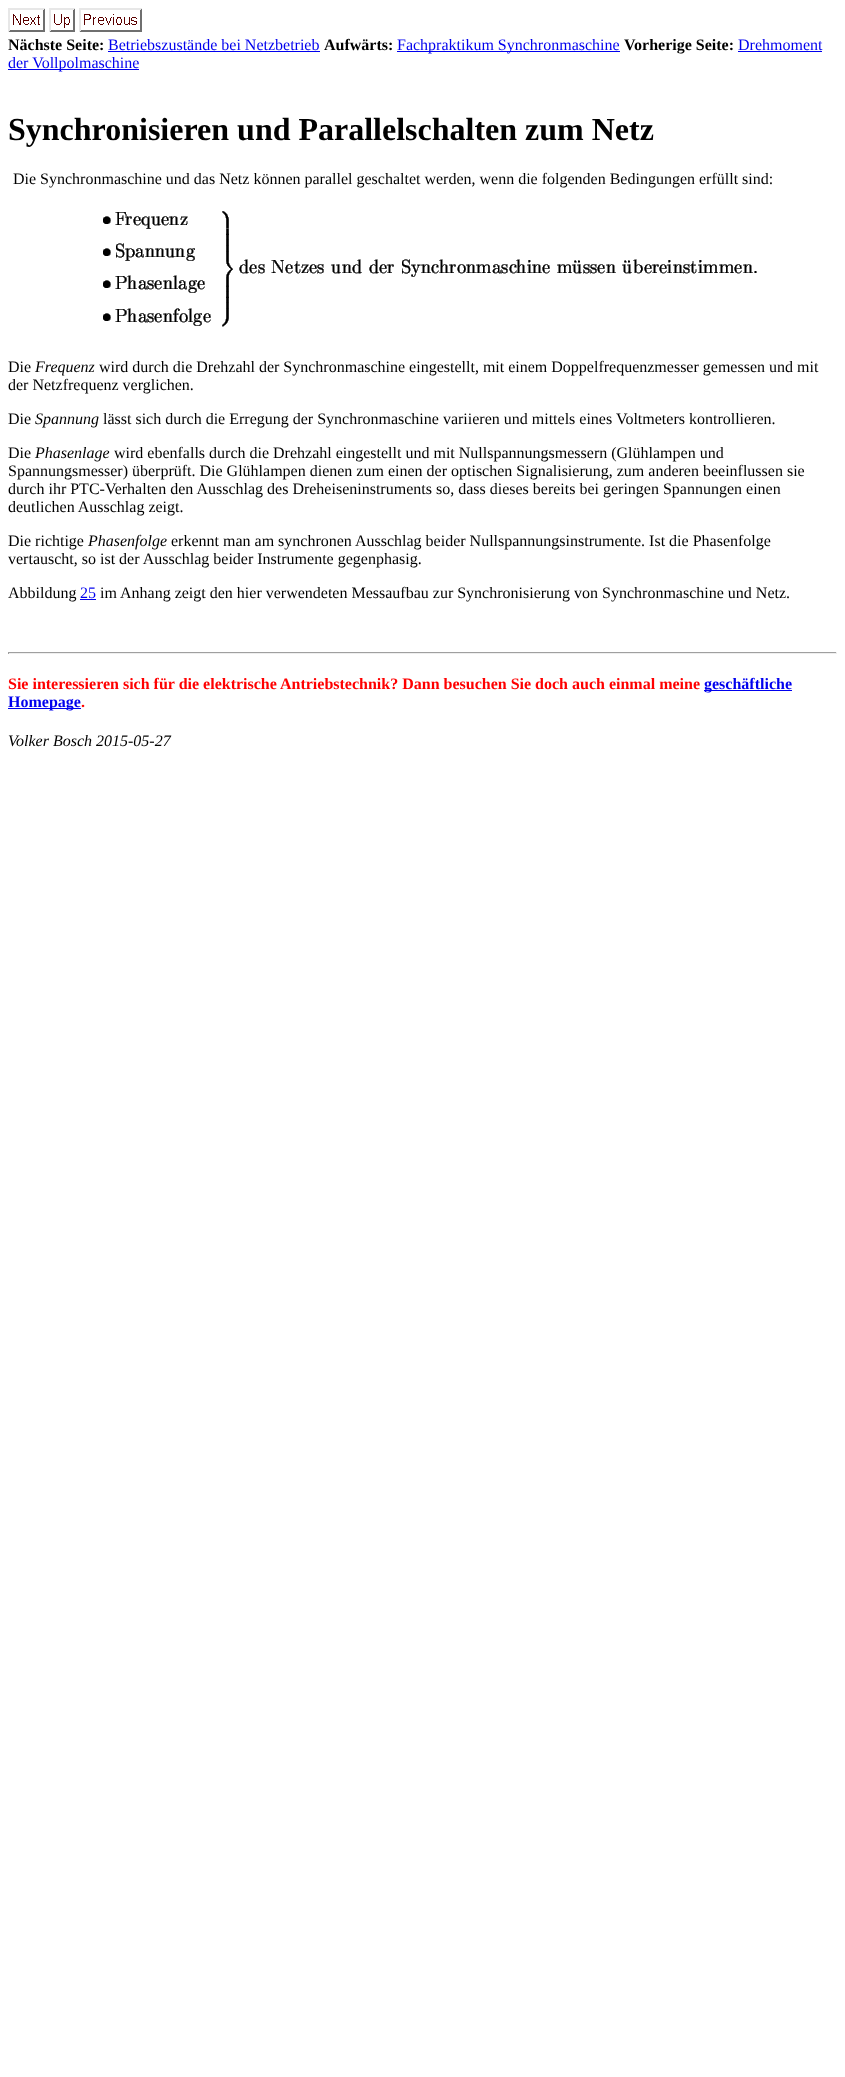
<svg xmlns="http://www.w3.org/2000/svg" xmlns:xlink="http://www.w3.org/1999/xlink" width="845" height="2077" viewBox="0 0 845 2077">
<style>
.cls-1{font:bold 16px Liberation Serif;fill:#000000}
.cls-2{font:16px Liberation Serif;fill:#0000ee}
.cls-3{font:bold 32px Liberation Serif;fill:#000000}
.cls-4{font:16px Liberation Serif;fill:#000000}
.cls-5{font:italic 16px Liberation Serif;fill:#000000}
.cls-6{font:bold 16px Liberation Serif;fill:#ff0000}
.cls-7{font:bold 16px Liberation Serif;fill:#0000ee}
</style>
<rect width="100%" height="100%" fill="#ffffff"/>
<image xlink:href="image0.png" x="8" y="8" width="37" height="24"/>
<image xlink:href="image1.png" x="49" y="8" width="26" height="24"/>
<image xlink:href="image2.png" x="79" y="8" width="63" height="24"/>
<rect fill="#0000ee" x="108" y="51" width="212" height="1"/>
<rect fill="#0000ee" x="397" y="51" width="223" height="1"/>
<rect fill="#0000ee" x="738" y="51" width="84" height="1"/>
<rect fill="#0000ee" x="8" y="69" width="131" height="1"/>
<image xlink:href="image3.png" x="103" y="211" width="654" height="116"/>
<rect fill="#0000ee" x="80" y="599" width="16" height="1"/>
<rect fill="#9f9f9f" x="8" y="652" width="829" height="1"/>
<rect fill="#eeeeee" x="836" y="652" width="1" height="2"/>
<rect fill="#eeeeee" x="8" y="653" width="829" height="1"/>
<rect fill="#9f9f9f" x="8" y="652" width="1" height="2"/>
<rect fill="#0000ee" x="704" y="690" width="88" height="1"/>
<rect fill="#0000ee" x="8" y="708" width="73" height="1"/>
<text class="cls-1" x="8" y="50">Nächste Seite:</text>
<text class="cls-2" x="108" y="50">Betriebszustände bei Netzbetrieb</text>
<text class="cls-1" x="324" y="50">Aufwärts:</text>
<text class="cls-2" x="397" y="50">Fachpraktikum Synchronmaschine</text>
<text class="cls-1" x="624" y="50">Vorherige Seite:</text>
<text class="cls-2" x="738" y="50">Drehmoment</text>
<text class="cls-2" x="8" y="68">der Vollpolmaschine</text>
<text class="cls-3" x="8" y="140">Synchronisieren und Parallelschalten zum Netz</text>
<text class="cls-4" x="13" y="184">Die Synchronmaschine und das Netz können parallel geschaltet werden, wenn die folgenden Bedingungen erfüllt sind:</text>
<text class="cls-4" x="8" y="372">Die</text>
<text class="cls-5" x="35" y="372">Frequenz</text>
<text class="cls-4" x="99" y="372">wird durch die Drehzahl der Synchronmaschine eingestellt, mit einem Doppelfrequenzmesser gemessen und mit</text>
<text class="cls-4" x="8" y="390">der Netzfrequenz verglichen.</text>
<text class="cls-4" x="8" y="424">Die</text>
<text class="cls-5" x="35" y="424">Spannung</text>
<text class="cls-4" x="103" y="424">lässt sich durch die Erregung der Synchronmaschine variieren und mittels eines Voltmeters kontrollieren.</text>
<text class="cls-4" x="8" y="458">Die</text>
<text class="cls-5" x="35" y="458">Phasenlage</text>
<text class="cls-4" x="114" y="458">wird ebenfalls durch die Drehzahl eingestellt und mit Nullspannungsmessern (Glühlampen und</text>
<text class="cls-4"><tspan x="8" y="476">Spannungsmesser) überprüft. Die Glühlampen dienen zum einen der optischen Signalisierung, zum anderen beeinflussen sie</tspan><tspan x="8" y="494">durch ihr PTC-Verhalten den Ausschlag des Dreheiseninstruments so, dass dieses bereits bei geringen Spannungen einen</tspan><tspan x="8" y="512">deutlichen Ausschlag zeigt.</tspan></text>
<text class="cls-4" x="8" y="546">Die richtige</text>
<text class="cls-5" x="88" y="546">Phasenfolge</text>
<text class="cls-4" x="171" y="546">erkennt man am synchronen Ausschlag beider Nullspannungsinstrumente. Ist die Phasenfolge</text>
<text class="cls-4" x="8" y="564">vertauscht, so ist der Ausschlag beider Instrumente gegenphasig.</text>
<text class="cls-4" x="8" y="598">Abbildung</text>
<text class="cls-2" x="80" y="598">25</text>
<text class="cls-4" x="100" y="598">im Anhang zeigt den hier verwendeten Messaufbau zur Synchronisierung von Synchronmaschine und Netz.</text>
<text class="cls-6" x="8" y="689">Sie interessieren sich für die elektrische Antriebstechnik? Dann besuchen Sie doch auch einmal meine</text>
<text class="cls-7" x="704" y="689">geschäftliche</text>
<text class="cls-7" x="8" y="707">Homepage</text>
<text class="cls-6" x="81" y="707">.</text>
<text class="cls-5" x="8" y="746">Volker Bosch 2015-05-27</text>
</svg>
